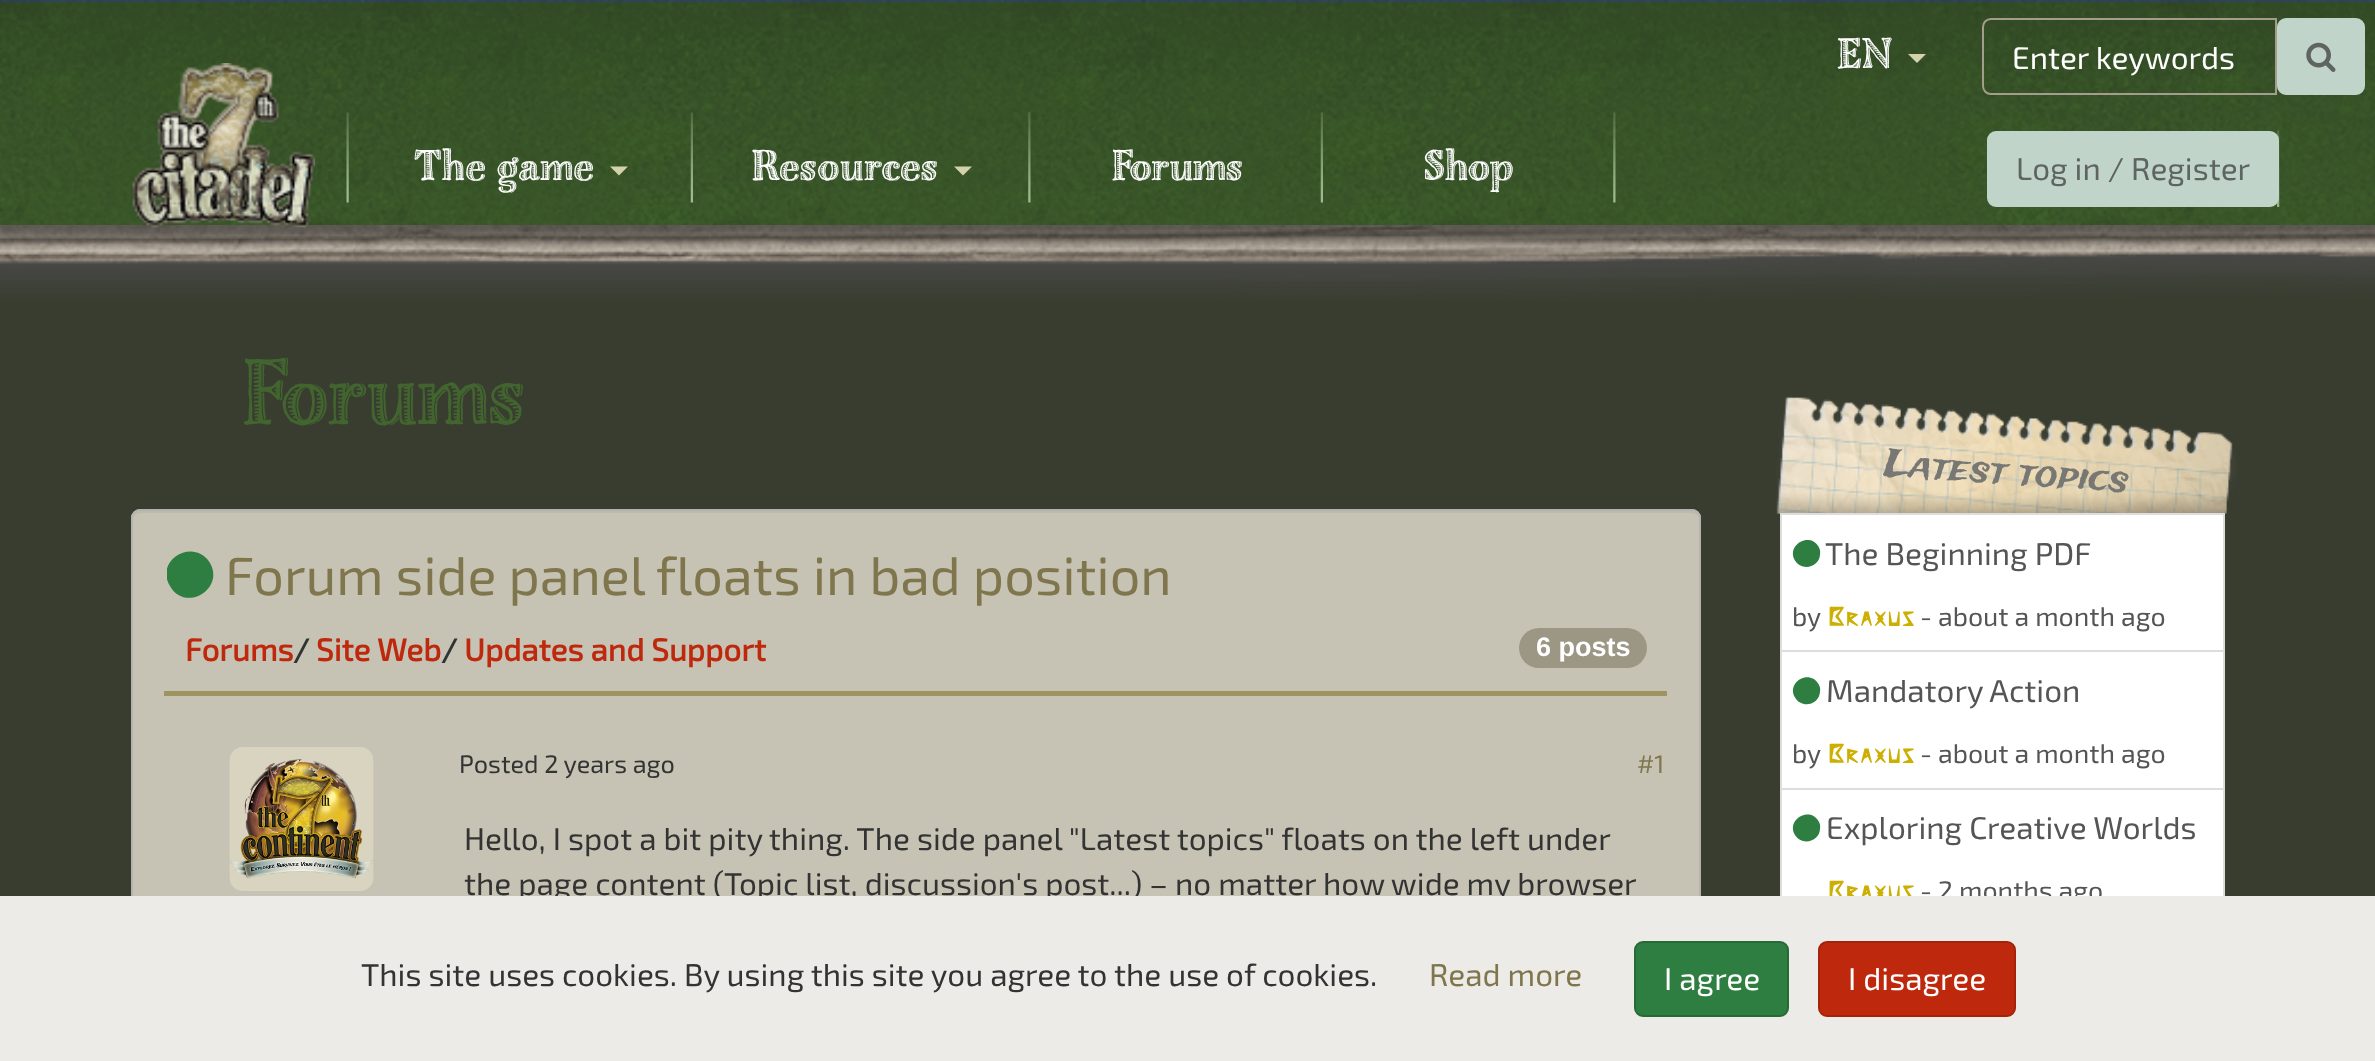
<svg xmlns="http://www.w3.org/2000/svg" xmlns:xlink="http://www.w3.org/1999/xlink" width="2375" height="1061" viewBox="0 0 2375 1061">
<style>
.cls-1{font:45.5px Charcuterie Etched;fill:#ffffff}
.cls-2{font:31.5px 'Exo 2';fill:#ffffff}
.cls-3{font:31.5px 'Exo 2';fill:#5e6560}
.cls-4{font:98px Charcuterie Etched;fill:#426530}
.cls-5{font:54px 'Exo 2';fill:#80764d}
.cls-6{font:bold 31.5px 'Exo 2';fill:#be280d}
.cls-7{font:bold 31.5px 'Exo 2';fill:#333333}
.cls-8{font:bold 27px Liberation Sans;fill:#ffffff}
.cls-9{font:25.25px 'Exo 2';fill:#333333}
.cls-10{font:25.25px 'Exo 2';fill:#80764d}
.cls-11{font:31.5px 'Exo 2';fill:#333333}
.cls-12{font:37.75px Trade Winds;fill:#777774}
.cls-13{font:31.5px 'Exo 2';fill:#555555}
.cls-14{font:26.75px 'Exo 2';fill:#555555}
.cls-15{font:26.75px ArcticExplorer;fill:#cdaf02}
.cls-16{font:31.5px 'Exo 2';fill:#80764d}
</style>
<defs>
<clipPath id="clip1"><rect x="167" y="545" width="1498" height="65"/></clipPath>
</defs>
<rect width="100%" height="100%" fill="#393d2f"/>
<image xlink:href="image9.png" x="0" y="225" width="2375" height="76"/>
<rect fill="#000000" fill-opacity="0.5" filter="blur(7px)" x="-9" y="-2" width="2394" height="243"/>
<image xlink:href="image0.png" x="0" y="0" width="2375" height="225"/>
<image xlink:href="image1.png" x="346" y="112" width="3" height="91"/>
<image xlink:href="image2.png" x="130" y="63" width="185" height="165"/>
<path fill="#d4d1ad" d="M1908 54H1926L1917 63Z"/>
<path fill="none" stroke="#a49c8c" stroke-width="2" d="M1991 19H2276V94H1991C1986.5 94 1983 90.5 1983 86V27C1983 22.5 1986.5 19 1991 19Z"/>
<rect fill="#c0d4ca" stroke="#c0d4ca" stroke-width="2" x="2278" y="19" width="86" height="75" rx="8"/>
<image xlink:href="image3.png" x="2306" y="42" width="30" height="30"/>
<image xlink:href="image4.png" x="690" y="112" width="3" height="91"/>
<path fill="#d4d1ad" d="M610 166.5H628L619 175.5Z"/>
<image xlink:href="image5.png" x="1028" y="112" width="3" height="91"/>
<path fill="#d4d1ad" d="M954 166.5H972L963 175.5Z"/>
<image xlink:href="image6.png" x="1320" y="112" width="3" height="91"/>
<image xlink:href="image7.png" x="1613" y="112" width="3" height="91"/>
<image xlink:href="image8.png" x="2277" y="130" width="3" height="77"/>
<rect fill="#c0d4ca" stroke="#c0d4ca" stroke-width="2" x="1988" y="132" width="290" height="74" rx="8"/>
<rect fill="#c7c3b4" x="131" y="509" width="1570" height="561" rx="9"/>
<path fill="#bdb9ab" d="M140 513H1692C1696 513 1699 516 1699 520C1699 516 1697 511 1692 511H140C135 511 133 516 133 520C133 516 136 513 140 513Z"/>
<rect fill="none" stroke="#b3b3b3" stroke-width="2" x="132" y="510" width="1568" height="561" rx="8"/>
<g clip-path="url(#clip1)">
<path fill="#2d7e40" d="M210 563C225 589 185 613 170 586C154 560 194 537 210 563Z"/>
</g>
<rect fill="#9f9361" x="164" y="691" width="1503" height="5"/>
<rect fill="#9c9785" x="1519" y="628" width="128" height="40" rx="20"/>
<image xlink:href="image10.png" x="229" y="747" width="145" height="144"/>
<image xlink:href="image11.png" x="1776" y="396" width="461" height="119"/>
<rect fill="#ffffff" x="1782" y="515" width="441" height="135"/>
<rect fill="none" stroke="#dddddd" stroke-width="2" x="1781" y="514" width="443" height="138"/>
<path fill="#2d7e40" d="M1818.5 546.5C1820 549 1820.5 551.5 1820 554.5C1819.5 567.5 1801.5 571.5 1795 560.5C1786 545 1809.5 531.5 1818.5 546.5Z"/>
<rect fill="#ffffff" stroke="#dddddd" stroke-width="2" x="1781" y="651" width="443" height="138"/>
<path fill="#2d7e40" d="M1818.5 684C1820 686.5 1820.5 689 1820 691.5C1819.5 705 1801.5 709 1795 697.5C1786 682 1809.5 668.5 1818.5 684Z"/>
<rect fill="#ffffff" x="1782" y="790" width="441" height="106"/>
<rect fill="none" stroke="#dddddd" stroke-width="2" x="1781" y="789" width="443" height="137"/>
<path fill="#2d7e40" d="M1818.5 821C1820 823.5 1820.5 826 1820 829C1819.5 842 1801.5 846 1795 835C1786 819.5 1809.5 806 1818.5 821Z"/>
<text class="cls-1" x="1837" y="68">EN</text>
<text class="cls-2" x="2012" y="69">Enter keywords</text>
<text class="cls-1" x="414" y="180">The game</text>
<text class="cls-1" x="752" y="180">Resources</text>
<text class="cls-1" x="1112" y="180">Forums</text>
<text class="cls-1" x="1424" y="180">Shop</text>
<text class="cls-3" x="2016" y="180">Log in / Register</text>
<text class="cls-4" x="243" y="424">Forums</text>
<text class="cls-5" x="225" y="595">Forum side panel floats in bad position</text>
<text class="cls-6" x="185" y="661">Forums</text>
<text class="cls-7" x="293" y="661">/</text>
<text class="cls-6" x="316" y="661">Site Web</text>
<text class="cls-7" x="441" y="661">/</text>
<text class="cls-6" x="464" y="661">Updates and Support</text>
<text class="cls-8" x="1536" y="656">6 posts</text>
<text class="cls-9" x="459" y="773">Posted 2 years ago</text>
<text class="cls-10" x="1637" y="773">#1</text>
<text class="cls-11"><tspan x="464" y="850">Hello, I spot a bit pity thing. The side panel "Latest topics" floats on the left under</tspan><tspan x="464" y="895">the page content (Topic list, discussion's post...) – no matter how wide my browser</tspan></text>
<text class="cls-12" x="1884" y="475" transform="rotate(4 1884 475)">Latest topics</text>
<text class="cls-13" x="1825" y="565">The Beginning PDF</text>
<text class="cls-14" x="1792" y="626">by</text>
<text class="cls-15" x="1827" y="626">Braxus</text>
<text class="cls-14" x="1920" y="626">- about a month ago</text>
<text class="cls-13" x="1826" y="702">Mandatory Action</text>
<text class="cls-14" x="1792" y="763">by</text>
<text class="cls-15" x="1827" y="763">Braxus</text>
<text class="cls-14" x="1920" y="763">- about a month ago</text>
<text class="cls-13" x="1826" y="839">Exploring Creative Worlds</text>
<text class="cls-15" x="1827" y="900">Braxus</text>
<text class="cls-14" x="1920" y="900">- 2 months ago</text>
<rect fill="#ecebe8" x="0" y="896" width="2375" height="165"/>
<text class="cls-11" x="361" y="986">This site uses cookies. By using this site you agree to the use of cookies.</text>
<text class="cls-16" x="1429" y="986">Read more</text>
<rect fill="#2d7e40" stroke="#266b36" stroke-width="2" x="1635" y="942" width="153" height="74" rx="8"/>
<text class="cls-2" x="1664" y="990">I agree</text>
<rect fill="#be280d" stroke="#a6230b" stroke-width="2" x="1819" y="942" width="196" height="74" rx="8"/>
<text class="cls-2" x="1848" y="990">I disagree</text>
</svg>
